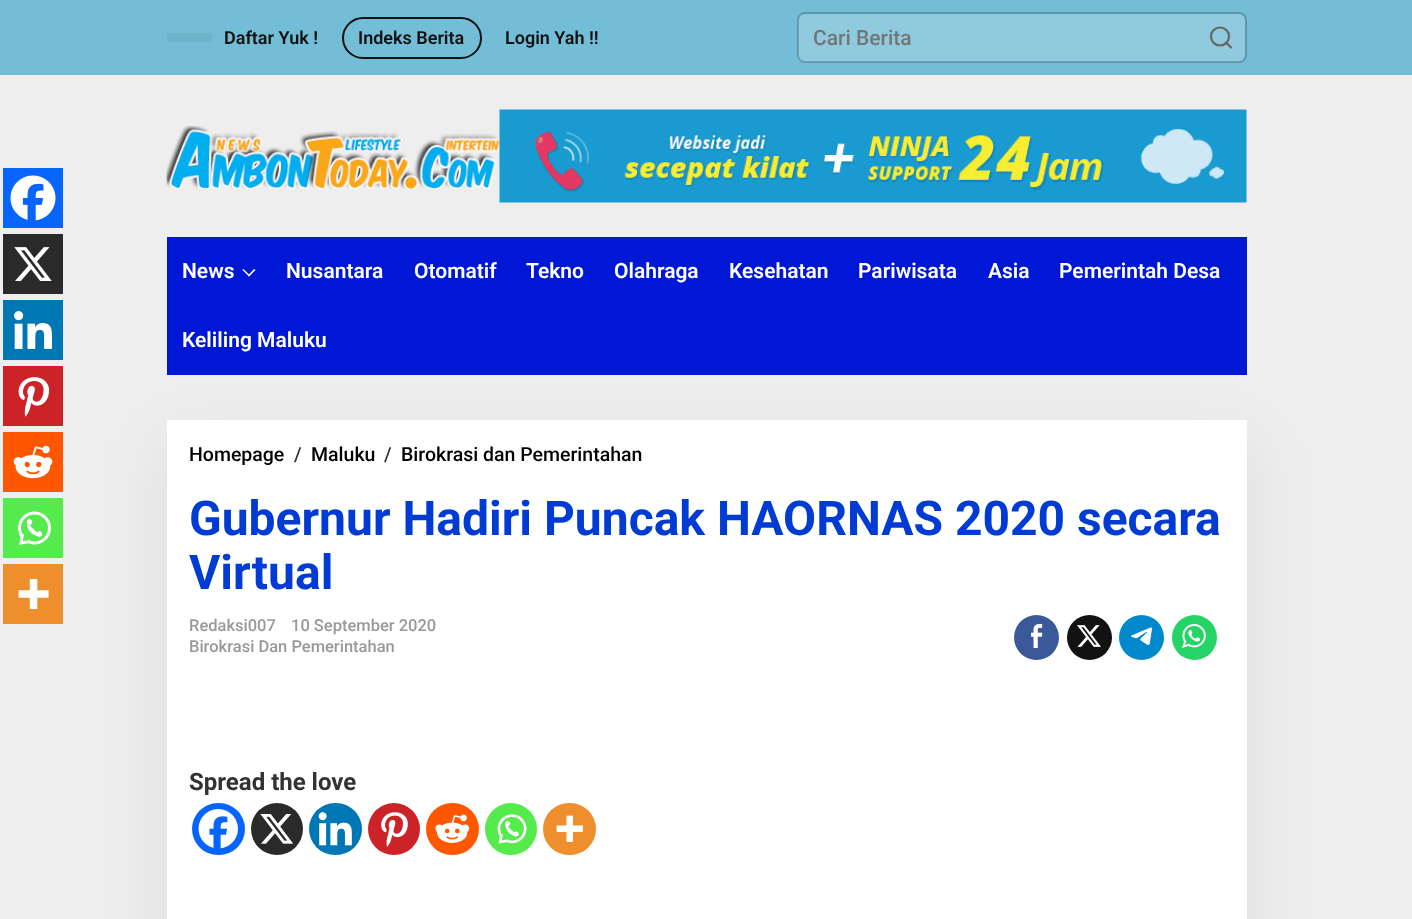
<svg xmlns="http://www.w3.org/2000/svg" xmlns:xlink="http://www.w3.org/1999/xlink" width="1412" height="919" viewBox="0 0 1412 919">
<style>
.cls-1{font:600 18px Roboto;fill:#111111}
.cls-2{font:500 21px Roboto;fill:#757575}
.cls-3{font:600 21px Roboto;fill:#ffffff}
.cls-4{font:500 19.5px Roboto;fill:#000000}
.cls-5{font:500 19.5px Roboto;fill:#323233}
.cls-6{font:bold 48px Roboto;fill:#003bd3}
.cls-7{font:500 16.5px Roboto;fill:#999999}
.cls-8{font:bold 24px Roboto;fill:#323233}
</style>
<rect width="100%" height="100%" fill="#eeeeee"/>
<rect fill="#73bdd6" x="0" y="0" width="1412" height="75"/>
<rect fill="#6db4cb" x="167" y="33" width="45" height="9"/>
<rect fill="none" stroke="#111111" stroke-width="2" x="343" y="18" width="138" height="40" rx="20"/>
<rect fill="#8fcade" x="798" y="14" width="447" height="48" rx="6"/>
<rect fill="none" stroke="#000000" stroke-opacity="0.2" stroke-width="2" x="798" y="13" width="448" height="49" rx="7"/>
<circle fill="none" stroke="#666666" stroke-width="2.2" cx="1220" cy="36.5" r="9"/>
<path fill="none" stroke="#666666" stroke-width="2.2" stroke-linecap="round" stroke-linejoin="round" d="M1231 47.5L1226 42.5"/>
<image xlink:href="image0.png" x="166" y="126" width="334" height="63"/>
<image xlink:href="image1.png" x="499" y="109" width="748" height="94"/>
<rect fill="#0018d6" x="167" y="237" width="1080" height="138"/>
<path fill="#ffffff" d="M254 269L255.5 270L249 276.5L248 275.5Z"/>
<path fill="#ffffff" d="M243.5 269L250 275.5L249 276.5L242.5 270Z"/>
<rect fill="#000000" fill-opacity="0.07" filter="blur(34px)" x="167" y="444" width="1080" height="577"/>
<rect fill="#ffffff" x="167" y="420" width="1080" height="499"/>
<circle fill="#3b5998" cx="1036.5" cy="637.5" r="22.5"/>
<image xlink:href="image2.png" x="1031" y="624" width="12" height="24"/>
<circle fill="#121212" cx="1089.5" cy="637.5" r="22.5"/>
<image xlink:href="image3.png" x="1077" y="625" width="24" height="22"/>
<circle fill="#0088cc" cx="1141.5" cy="637.5" r="22.5"/>
<image xlink:href="image4.png" x="1131" y="627" width="21" height="18"/>
<circle fill="#25d366" cx="1194.5" cy="637.5" r="22.5"/>
<image xlink:href="image5.png" x="1182" y="624" width="24" height="24"/>
<rect fill="#0765fe" x="3" y="168" width="60" height="60"/>
<image xlink:href="image6.png" x="10" y="175" width="46" height="46"/>
<rect fill="#2a2a2a" x="3" y="234" width="60" height="60"/>
<image xlink:href="image7.png" x="14" y="247" width="38" height="34"/>
<rect fill="#0077b5" x="3" y="300" width="60" height="60"/>
<image xlink:href="image8.png" x="14" y="311" width="38" height="38"/>
<rect fill="#cc2329" x="3" y="366" width="60" height="60"/>
<image xlink:href="image9.png" x="18" y="377" width="32" height="40"/>
<rect fill="#ff5700" x="3" y="432" width="60" height="60"/>
<image xlink:href="image10.png" x="13" y="445" width="40" height="34"/>
<rect fill="#55eb4c" x="3" y="498" width="60" height="60"/>
<image xlink:href="image11.png" x="18" y="511" width="33" height="34"/>
<rect fill="#ee8e2d" x="3" y="564" width="60" height="60"/>
<image xlink:href="image12.png" x="18" y="579" width="31" height="30"/>
<rect fill="#0765fe" x="192" y="803" width="53" height="52" rx="26"/>
<image xlink:href="image13.png" x="198" y="809" width="40" height="40"/>
<circle fill="#2a2a2a" cx="277" cy="829" r="26"/>
<image xlink:href="image14.png" x="260" y="814" width="33" height="30"/>
<rect fill="#0077b5" x="309" y="803" width="53" height="52" rx="26"/>
<image xlink:href="image15.png" x="318" y="812" width="34" height="34"/>
<circle fill="#cc2329" cx="394" cy="829" r="26"/>
<image xlink:href="image16.png" x="381" y="812" width="27" height="35"/>
<rect fill="#ff5700" x="426" y="803" width="53" height="52" rx="26"/>
<image xlink:href="image17.png" x="435" y="814" width="35" height="29"/>
<circle fill="#55eb4c" cx="511" cy="829" r="26"/>
<image xlink:href="image18.png" x="497" y="814" width="30" height="30"/>
<rect fill="#ee8e2d" x="543" y="803" width="53" height="52" rx="26"/>
<image xlink:href="image19.png" x="556" y="815" width="27" height="27"/>
<text class="cls-1" x="224" y="44">Daftar Yuk !</text>
<text class="cls-1" x="358" y="44">Indeks Berita</text>
<text class="cls-1" x="505" y="44">Login Yah !!</text>
<text class="cls-2" x="813" y="45">Cari Berita</text>
<text class="cls-3" x="182" y="278">News</text>
<text class="cls-3" x="286" y="278">Nusantara</text>
<text class="cls-3" x="414" y="278">Otomatif</text>
<text class="cls-3" x="526" y="278">Tekno</text>
<text class="cls-3" x="614" y="278">Olahraga</text>
<text class="cls-3" x="729" y="278">Kesehatan</text>
<text class="cls-3" x="858" y="278">Pariwisata</text>
<text class="cls-3" x="988" y="278">Asia</text>
<text class="cls-3" x="1059" y="278">Pemerintah Desa</text>
<text class="cls-3" x="182" y="347">Keliling Maluku</text>
<text class="cls-4" x="189" y="461">Homepage</text>
<text class="cls-5" x="294" y="461">/</text>
<text class="cls-4" x="311" y="461">Maluku</text>
<text class="cls-5" x="384" y="461">/</text>
<text class="cls-4" x="401" y="461">Birokrasi dan Pemerintahan</text>
<text class="cls-6"><tspan x="189" y="535">Gubernur Hadiri Puncak HAORNAS 2020 secara</tspan><tspan x="189" y="589">Virtual</tspan></text>
<text class="cls-7" x="189" y="631">Redaksi007</text>
<text class="cls-7" x="291" y="631">10 September 2020</text>
<text class="cls-7" x="189" y="652">Birokrasi Dan Pemerintahan</text>
<text class="cls-8" x="189" y="790">Spread the love</text>
</svg>
